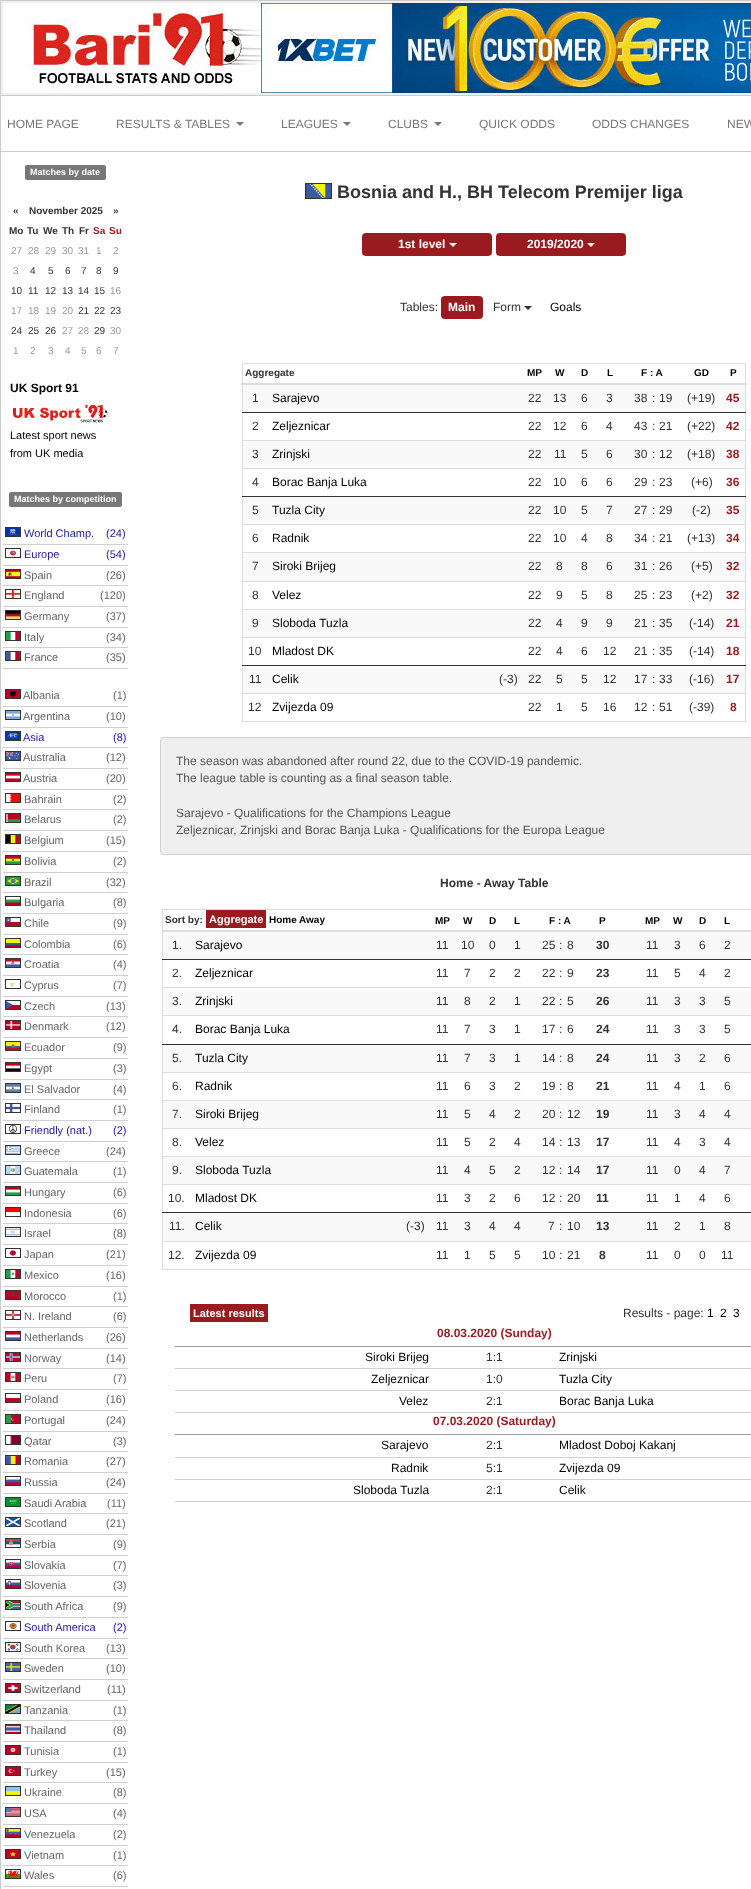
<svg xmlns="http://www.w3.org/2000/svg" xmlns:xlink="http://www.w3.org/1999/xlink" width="751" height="1889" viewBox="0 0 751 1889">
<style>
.cls-1{font:12px Liberation Sans;fill:#777777}
.cls-2{font:bold 9px Liberation Sans;fill:#ffffff}
.cls-3{font:bold 10px Liberation Sans;fill:#333333}
.cls-4{font:bold 10px Liberation Sans;fill:#991b1f}
.cls-5{font:10px Liberation Sans;fill:#999999}
.cls-6{font:10px Liberation Sans;fill:#333333}
.cls-7{font:bold 12px Liberation Sans;fill:#000000}
.cls-8{font:11px Liberation Sans;fill:#000000}
.cls-9{font:11px Liberation Sans;fill:#1f1b99}
.cls-10{font:11px Liberation Sans;fill:#656565}
.cls-11{font:bold 18px Liberation Sans;fill:#333333}
.cls-12{font:bold 12px Liberation Sans;fill:#ffffff}
.cls-13{font:12px Liberation Sans;fill:#333333}
.cls-14{font:12px Liberation Sans;fill:#000000}
.cls-15{font:bold 10px Liberation Sans;fill:#000000}
.cls-16{font:bold 12px Liberation Sans;fill:#991b1f}
.cls-17{font:12px Liberation Sans;fill:#555555}
.cls-18{font:bold 12px Liberation Sans;fill:#333333}
.cls-19{font:bold 11px Liberation Sans;fill:#ffffff}
</style>
<rect width="100%" height="100%" fill="#ffffff"/>
<rect fill="#efefef" x="1" y="1" width="750" height="94"/>
<rect fill="#cccccc" x="0" y="0" width="751" height="1"/>
<rect fill="#cccccc" x="0" y="0" width="1" height="151"/>
<rect fill="#cccccc" x="1" y="95" width="750" height="1"/>
<image xlink:href="image0.png" x="3" y="3" width="258" height="90"/>
<image xlink:href="image1.png" x="261" y="3" width="490" height="90"/>
<path fill="#777777" d="M236 122H244L240 126Z"/>
<path fill="#777777" d="M343 122H351L347 126Z"/>
<path fill="#777777" d="M434 122H442L438 126Z"/>
<rect fill="#cccccc" x="0" y="151" width="751" height="1"/>
<rect fill="#cccccc" x="0" y="151" width="1" height="1738"/>
<rect fill="#777777" x="25" y="165" width="81" height="15" rx="2"/>
<image xlink:href="image2.png" x="13" y="404" width="97" height="19"/>
<rect fill="#777777" x="9" y="492" width="113" height="15" rx="2"/>
<rect fill="#d0d0d0" x="3" y="544" width="125" height="1"/>
<image xlink:href="image3.png" x="6" y="528" width="14" height="8"/>
<rect fill="none" stroke="#333333" x="5.5" y="527.5" width="15" height="9"/>
<rect fill="#d0d0d0" x="3" y="565" width="125" height="1"/>
<image xlink:href="image4.png" x="6" y="549" width="14" height="8"/>
<rect fill="none" stroke="#333333" x="5.5" y="548.5" width="15" height="9"/>
<rect fill="#d0d0d0" x="3" y="585" width="125" height="1"/>
<image xlink:href="image5.png" x="6" y="570" width="14" height="8"/>
<rect fill="none" stroke="#333333" x="5.5" y="569.5" width="15" height="9"/>
<rect fill="#d0d0d0" x="3" y="606" width="125" height="1"/>
<image xlink:href="image6.png" x="6" y="590" width="14" height="8"/>
<rect fill="none" stroke="#333333" x="5.5" y="589.5" width="15" height="9"/>
<rect fill="#d0d0d0" x="3" y="627" width="125" height="1"/>
<image xlink:href="image7.png" x="6" y="611" width="14" height="8"/>
<rect fill="none" stroke="#333333" x="5.5" y="610.5" width="15" height="9"/>
<rect fill="#d0d0d0" x="3" y="647" width="125" height="1"/>
<image xlink:href="image8.png" x="6" y="632" width="14" height="8"/>
<rect fill="none" stroke="#333333" x="5.5" y="631.5" width="15" height="9"/>
<rect fill="#d0d0d0" x="3" y="668" width="125" height="1"/>
<image xlink:href="image9.png" x="6" y="652" width="14" height="8"/>
<rect fill="none" stroke="#333333" x="5.5" y="651.5" width="15" height="9"/>
<rect fill="#d0d0d0" x="3" y="706" width="125" height="1"/>
<image xlink:href="image10.png" x="6" y="690" width="14" height="8"/>
<rect fill="none" stroke="#333333" x="5.5" y="689.5" width="15" height="9"/>
<rect fill="#d0d0d0" x="3" y="727" width="125" height="1"/>
<image xlink:href="image11.png" x="6" y="711" width="14" height="8"/>
<rect fill="none" stroke="#333333" x="5.5" y="710.5" width="15" height="9"/>
<rect fill="#d0d0d0" x="3" y="747" width="125" height="1"/>
<image xlink:href="image12.png" x="6" y="732" width="14" height="8"/>
<rect fill="none" stroke="#333333" x="5.5" y="731.5" width="15" height="9"/>
<rect fill="#d0d0d0" x="3" y="768" width="125" height="1"/>
<image xlink:href="image13.png" x="6" y="752" width="14" height="8"/>
<rect fill="none" stroke="#333333" x="5.5" y="751.5" width="15" height="9"/>
<rect fill="#d0d0d0" x="3" y="789" width="125" height="1"/>
<image xlink:href="image14.png" x="6" y="773" width="14" height="8"/>
<rect fill="none" stroke="#333333" x="5.5" y="772.5" width="15" height="9"/>
<rect fill="#d0d0d0" x="3" y="809" width="125" height="1"/>
<image xlink:href="image15.png" x="6" y="794" width="14" height="8"/>
<rect fill="none" stroke="#333333" x="5.5" y="793.5" width="15" height="9"/>
<rect fill="#d0d0d0" x="3" y="830" width="125" height="1"/>
<image xlink:href="image16.png" x="6" y="814" width="14" height="8"/>
<rect fill="none" stroke="#333333" x="5.5" y="813.5" width="15" height="9"/>
<rect fill="#d0d0d0" x="3" y="851" width="125" height="1"/>
<image xlink:href="image17.png" x="6" y="835" width="14" height="8"/>
<rect fill="none" stroke="#333333" x="5.5" y="834.5" width="15" height="9"/>
<rect fill="#d0d0d0" x="3" y="872" width="125" height="1"/>
<image xlink:href="image18.png" x="6" y="856" width="14" height="8"/>
<rect fill="none" stroke="#333333" x="5.5" y="855.5" width="15" height="9"/>
<rect fill="#d0d0d0" x="3" y="892" width="125" height="1"/>
<image xlink:href="image19.png" x="6" y="877" width="14" height="8"/>
<rect fill="none" stroke="#333333" x="5.5" y="876.5" width="15" height="9"/>
<rect fill="#d0d0d0" x="3" y="913" width="125" height="1"/>
<image xlink:href="image20.png" x="6" y="897" width="14" height="8"/>
<rect fill="none" stroke="#333333" x="5.5" y="896.5" width="15" height="9"/>
<rect fill="#d0d0d0" x="3" y="934" width="125" height="1"/>
<image xlink:href="image21.png" x="6" y="918" width="14" height="8"/>
<rect fill="none" stroke="#333333" x="5.5" y="917.5" width="15" height="9"/>
<rect fill="#d0d0d0" x="3" y="954" width="125" height="1"/>
<image xlink:href="image22.png" x="6" y="939" width="14" height="8"/>
<rect fill="none" stroke="#333333" x="5.5" y="938.5" width="15" height="9"/>
<rect fill="#d0d0d0" x="3" y="975" width="125" height="1"/>
<image xlink:href="image23.png" x="6" y="959" width="14" height="8"/>
<rect fill="none" stroke="#333333" x="5.5" y="958.5" width="15" height="9"/>
<rect fill="#d0d0d0" x="3" y="996" width="125" height="1"/>
<image xlink:href="image24.png" x="6" y="980" width="14" height="8"/>
<rect fill="none" stroke="#333333" x="5.5" y="979.5" width="15" height="9"/>
<rect fill="#d0d0d0" x="3" y="1016" width="125" height="1"/>
<image xlink:href="image25.png" x="6" y="1001" width="14" height="8"/>
<rect fill="none" stroke="#333333" x="5.5" y="1000.5" width="15" height="9"/>
<rect fill="#d0d0d0" x="3" y="1037" width="125" height="1"/>
<image xlink:href="image26.png" x="6" y="1021" width="14" height="8"/>
<rect fill="none" stroke="#333333" x="5.5" y="1020.5" width="15" height="9"/>
<rect fill="#d0d0d0" x="3" y="1058" width="125" height="1"/>
<image xlink:href="image27.png" x="6" y="1042" width="14" height="8"/>
<rect fill="none" stroke="#333333" x="5.5" y="1041.5" width="15" height="9"/>
<rect fill="#d0d0d0" x="3" y="1079" width="125" height="1"/>
<image xlink:href="image28.png" x="6" y="1063" width="14" height="8"/>
<rect fill="none" stroke="#333333" x="5.5" y="1062.5" width="15" height="9"/>
<rect fill="#d0d0d0" x="3" y="1099" width="125" height="1"/>
<image xlink:href="image29.png" x="6" y="1084" width="14" height="8"/>
<rect fill="none" stroke="#333333" x="5.5" y="1083.5" width="15" height="9"/>
<rect fill="#d0d0d0" x="3" y="1120" width="125" height="1"/>
<image xlink:href="image30.png" x="6" y="1104" width="14" height="8"/>
<rect fill="none" stroke="#333333" x="5.5" y="1103.5" width="15" height="9"/>
<rect fill="#d0d0d0" x="3" y="1141" width="125" height="1"/>
<image xlink:href="image31.png" x="9" y="1125" width="8" height="8"/>
<rect fill="none" stroke="#333333" x="5.5" y="1124.5" width="15" height="9"/>
<rect fill="#d0d0d0" x="3" y="1161" width="125" height="1"/>
<image xlink:href="image32.png" x="6" y="1146" width="14" height="8"/>
<rect fill="none" stroke="#333333" x="5.5" y="1145.5" width="15" height="9"/>
<rect fill="#d0d0d0" x="3" y="1182" width="125" height="1"/>
<image xlink:href="image33.png" x="6" y="1166" width="14" height="8"/>
<rect fill="none" stroke="#333333" x="5.5" y="1165.5" width="15" height="9"/>
<rect fill="#d0d0d0" x="3" y="1203" width="125" height="1"/>
<image xlink:href="image34.png" x="6" y="1187" width="14" height="8"/>
<rect fill="none" stroke="#333333" x="5.5" y="1186.5" width="15" height="9"/>
<rect fill="#d0d0d0" x="3" y="1223" width="125" height="1"/>
<image xlink:href="image35.png" x="6" y="1208" width="14" height="8"/>
<rect fill="none" stroke="#333333" x="5.5" y="1207.5" width="15" height="9"/>
<rect fill="#d0d0d0" x="3" y="1244" width="125" height="1"/>
<image xlink:href="image36.png" x="6" y="1228" width="14" height="8"/>
<rect fill="none" stroke="#333333" x="5.5" y="1227.5" width="15" height="9"/>
<rect fill="#d0d0d0" x="3" y="1265" width="125" height="1"/>
<image xlink:href="image37.png" x="6" y="1249" width="14" height="8"/>
<rect fill="none" stroke="#333333" x="5.5" y="1248.5" width="15" height="9"/>
<rect fill="#d0d0d0" x="3" y="1286" width="125" height="1"/>
<image xlink:href="image38.png" x="6" y="1270" width="14" height="8"/>
<rect fill="none" stroke="#333333" x="5.5" y="1269.5" width="15" height="9"/>
<rect fill="#d0d0d0" x="3" y="1306" width="125" height="1"/>
<image xlink:href="image39.png" x="6" y="1291" width="14" height="8"/>
<rect fill="none" stroke="#333333" x="5.5" y="1290.5" width="15" height="9"/>
<rect fill="#d0d0d0" x="3" y="1327" width="125" height="1"/>
<image xlink:href="image40.png" x="6" y="1311" width="14" height="8"/>
<rect fill="none" stroke="#333333" x="5.5" y="1310.5" width="15" height="9"/>
<rect fill="#d0d0d0" x="3" y="1348" width="125" height="1"/>
<image xlink:href="image41.png" x="6" y="1332" width="14" height="8"/>
<rect fill="none" stroke="#333333" x="5.5" y="1331.5" width="15" height="9"/>
<rect fill="#d0d0d0" x="3" y="1368" width="125" height="1"/>
<image xlink:href="image42.png" x="6" y="1353" width="14" height="8"/>
<rect fill="none" stroke="#333333" x="5.5" y="1352.5" width="15" height="9"/>
<rect fill="#d0d0d0" x="3" y="1389" width="125" height="1"/>
<image xlink:href="image43.png" x="6" y="1373" width="14" height="8"/>
<rect fill="none" stroke="#333333" x="5.5" y="1372.5" width="15" height="9"/>
<rect fill="#d0d0d0" x="3" y="1410" width="125" height="1"/>
<image xlink:href="image44.png" x="6" y="1394" width="14" height="8"/>
<rect fill="none" stroke="#333333" x="5.5" y="1393.5" width="15" height="9"/>
<rect fill="#d0d0d0" x="3" y="1431" width="125" height="1"/>
<image xlink:href="image45.png" x="6" y="1415" width="14" height="8"/>
<rect fill="none" stroke="#333333" x="5.5" y="1414.5" width="15" height="9"/>
<rect fill="#d0d0d0" x="3" y="1451" width="125" height="1"/>
<image xlink:href="image46.png" x="6" y="1436" width="14" height="8"/>
<rect fill="none" stroke="#333333" x="5.5" y="1435.5" width="15" height="9"/>
<rect fill="#d0d0d0" x="3" y="1472" width="125" height="1"/>
<image xlink:href="image47.png" x="6" y="1456" width="14" height="8"/>
<rect fill="none" stroke="#333333" x="5.5" y="1455.5" width="15" height="9"/>
<rect fill="#d0d0d0" x="3" y="1493" width="125" height="1"/>
<image xlink:href="image48.png" x="6" y="1477" width="14" height="8"/>
<rect fill="none" stroke="#333333" x="5.5" y="1476.5" width="15" height="9"/>
<rect fill="#d0d0d0" x="3" y="1513" width="125" height="1"/>
<image xlink:href="image49.png" x="6" y="1498" width="14" height="8"/>
<rect fill="none" stroke="#333333" x="5.5" y="1497.5" width="15" height="9"/>
<rect fill="#d0d0d0" x="3" y="1534" width="125" height="1"/>
<image xlink:href="image50.png" x="6" y="1518" width="14" height="8"/>
<rect fill="none" stroke="#333333" x="5.5" y="1517.5" width="15" height="9"/>
<rect fill="#d0d0d0" x="3" y="1555" width="125" height="1"/>
<image xlink:href="image51.png" x="6" y="1539" width="14" height="8"/>
<rect fill="none" stroke="#333333" x="5.5" y="1538.5" width="15" height="9"/>
<rect fill="#d0d0d0" x="3" y="1575" width="125" height="1"/>
<image xlink:href="image52.png" x="6" y="1560" width="14" height="8"/>
<rect fill="none" stroke="#333333" x="5.5" y="1559.5" width="15" height="9"/>
<rect fill="#d0d0d0" x="3" y="1596" width="125" height="1"/>
<image xlink:href="image53.png" x="6" y="1580" width="14" height="8"/>
<rect fill="none" stroke="#333333" x="5.5" y="1579.5" width="15" height="9"/>
<rect fill="#d0d0d0" x="3" y="1617" width="125" height="1"/>
<image xlink:href="image54.png" x="6" y="1601" width="14" height="8"/>
<rect fill="none" stroke="#333333" x="5.5" y="1600.5" width="15" height="9"/>
<rect fill="#d0d0d0" x="3" y="1638" width="125" height="1"/>
<image xlink:href="image55.png" x="6" y="1622" width="14" height="8"/>
<rect fill="none" stroke="#333333" x="5.5" y="1621.5" width="15" height="9"/>
<rect fill="#d0d0d0" x="3" y="1658" width="125" height="1"/>
<image xlink:href="image56.png" x="6" y="1643" width="14" height="8"/>
<rect fill="none" stroke="#333333" x="5.5" y="1642.5" width="15" height="9"/>
<rect fill="#d0d0d0" x="3" y="1679" width="125" height="1"/>
<image xlink:href="image57.png" x="6" y="1663" width="14" height="8"/>
<rect fill="none" stroke="#333333" x="5.5" y="1662.5" width="15" height="9"/>
<rect fill="#d0d0d0" x="3" y="1700" width="125" height="1"/>
<image xlink:href="image58.png" x="6" y="1684" width="14" height="8"/>
<rect fill="none" stroke="#333333" x="5.5" y="1683.5" width="15" height="9"/>
<rect fill="#d0d0d0" x="3" y="1720" width="125" height="1"/>
<image xlink:href="image59.png" x="6" y="1705" width="14" height="8"/>
<rect fill="none" stroke="#333333" x="5.5" y="1704.5" width="15" height="9"/>
<rect fill="#d0d0d0" x="3" y="1741" width="125" height="1"/>
<image xlink:href="image60.png" x="6" y="1725" width="14" height="8"/>
<rect fill="none" stroke="#333333" x="5.5" y="1724.5" width="15" height="9"/>
<rect fill="#d0d0d0" x="3" y="1762" width="125" height="1"/>
<image xlink:href="image61.png" x="6" y="1746" width="14" height="8"/>
<rect fill="none" stroke="#333333" x="5.5" y="1745.5" width="15" height="9"/>
<rect fill="#d0d0d0" x="3" y="1782" width="125" height="1"/>
<image xlink:href="image62.png" x="6" y="1767" width="14" height="8"/>
<rect fill="none" stroke="#333333" x="5.5" y="1766.5" width="15" height="9"/>
<rect fill="#d0d0d0" x="3" y="1803" width="125" height="1"/>
<image xlink:href="image63.png" x="6" y="1787" width="14" height="8"/>
<rect fill="none" stroke="#333333" x="5.5" y="1786.5" width="15" height="9"/>
<rect fill="#d0d0d0" x="3" y="1824" width="125" height="1"/>
<image xlink:href="image64.png" x="6" y="1808" width="14" height="8"/>
<rect fill="none" stroke="#333333" x="5.5" y="1807.5" width="15" height="9"/>
<rect fill="#d0d0d0" x="3" y="1845" width="125" height="1"/>
<image xlink:href="image65.png" x="6" y="1829" width="14" height="8"/>
<rect fill="none" stroke="#333333" x="5.5" y="1828.5" width="15" height="9"/>
<rect fill="#d0d0d0" x="3" y="1865" width="125" height="1"/>
<image xlink:href="image66.png" x="6" y="1850" width="14" height="8"/>
<rect fill="none" stroke="#333333" x="5.5" y="1849.5" width="15" height="9"/>
<rect fill="#d0d0d0" x="3" y="1886" width="125" height="1"/>
<image xlink:href="image67.png" x="6" y="1870" width="14" height="8"/>
<rect fill="none" stroke="#333333" x="5.5" y="1869.5" width="15" height="9"/>
<rect fill="none" stroke="#333333" x="305.5" y="183.5" width="26" height="15"/>
<image xlink:href="image68.png" x="306" y="184" width="25" height="14"/>
<rect fill="#991b1f" x="362" y="233" width="130" height="23" rx="4"/>
<path fill="#ffffff" d="M449 243H457L453 247Z"/>
<rect fill="#991b1f" x="496" y="233" width="130" height="23" rx="4"/>
<path fill="#ffffff" d="M587 243H595L591 247Z"/>
<rect fill="#991b1f" x="441" y="296" width="42" height="23" rx="4"/>
<path fill="#333333" d="M524 306H532L528 310Z"/>
<rect fill="#dddddd" x="242" y="363" width="504" height="1"/>
<rect fill="#dddddd" x="745" y="363" width="1" height="359"/>
<rect fill="#dddddd" x="242" y="721" width="504" height="1"/>
<rect fill="#dddddd" x="242" y="363" width="1" height="359"/>
<rect fill="#dddddd" x="241" y="383" width="506" height="2"/>
<rect fill="#f9f9f9" x="243" y="385" width="502" height="27"/>
<rect fill="#333333" x="242" y="412" width="504" height="1"/>
<rect fill="#f9f9f9" x="243" y="441" width="502" height="27"/>
<rect fill="#dddddd" x="242" y="440" width="504" height="1"/>
<rect fill="#dddddd" x="242" y="468" width="504" height="1"/>
<rect fill="#333333" x="242" y="496" width="504" height="1"/>
<rect fill="#f9f9f9" x="243" y="497" width="502" height="27"/>
<rect fill="#dddddd" x="242" y="524" width="504" height="1"/>
<rect fill="#f9f9f9" x="243" y="553" width="502" height="28"/>
<rect fill="#dddddd" x="242" y="552" width="504" height="1"/>
<rect fill="#dddddd" x="242" y="581" width="504" height="1"/>
<rect fill="#f9f9f9" x="243" y="610" width="502" height="27"/>
<rect fill="#dddddd" x="242" y="609" width="504" height="1"/>
<rect fill="#dddddd" x="242" y="637" width="504" height="1"/>
<rect fill="#333333" x="242" y="665" width="504" height="1"/>
<rect fill="#f9f9f9" x="243" y="666" width="502" height="27"/>
<rect fill="#dddddd" x="242" y="693" width="504" height="1"/>
<rect fill="#efefef" stroke="#d0d0d0" x="160.5" y="737.5" width="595" height="117" rx="3.5"/>
<rect fill="#dddddd" x="162" y="909" width="589" height="1"/>
<rect fill="#dddddd" x="162" y="1269" width="589" height="1"/>
<rect fill="#dddddd" x="162" y="909" width="1" height="361"/>
<rect fill="#991b1f" x="206" y="910" width="60" height="18"/>
<rect fill="#dddddd" x="162" y="930" width="589" height="2"/>
<rect fill="#f9f9f9" x="163" y="932" width="588" height="27"/>
<rect fill="#333333" x="162" y="959" width="589" height="1"/>
<rect fill="#f9f9f9" x="163" y="988" width="588" height="27"/>
<rect fill="#dddddd" x="162" y="987" width="589" height="1"/>
<rect fill="#dddddd" x="162" y="1015" width="589" height="1"/>
<rect fill="#333333" x="162" y="1044" width="589" height="1"/>
<rect fill="#f9f9f9" x="163" y="1045" width="588" height="27"/>
<rect fill="#dddddd" x="162" y="1072" width="589" height="1"/>
<rect fill="#f9f9f9" x="163" y="1101" width="588" height="27"/>
<rect fill="#dddddd" x="162" y="1100" width="589" height="1"/>
<rect fill="#dddddd" x="162" y="1128" width="589" height="1"/>
<rect fill="#f9f9f9" x="163" y="1157" width="588" height="27"/>
<rect fill="#dddddd" x="162" y="1156" width="589" height="1"/>
<rect fill="#dddddd" x="162" y="1184" width="589" height="1"/>
<rect fill="#333333" x="162" y="1212" width="589" height="1"/>
<rect fill="#f9f9f9" x="163" y="1213" width="588" height="28"/>
<rect fill="#dddddd" x="162" y="1241" width="589" height="1"/>
<rect fill="#991b1f" x="190" y="1304" width="78" height="18"/>
<rect fill="#999999" x="175" y="1346" width="576" height="1"/>
<rect fill="#d0d0d0" x="175" y="1368" width="576" height="1"/>
<rect fill="#d0d0d0" x="175" y="1390" width="576" height="1"/>
<rect fill="#d0d0d0" x="175" y="1412" width="576" height="1"/>
<rect fill="#999999" x="175" y="1434" width="576" height="1"/>
<rect fill="#d0d0d0" x="175" y="1457" width="576" height="1"/>
<rect fill="#d0d0d0" x="175" y="1479" width="576" height="1"/>
<rect fill="#d0d0d0" x="175" y="1501" width="576" height="1"/>
<text class="cls-1" x="7" y="128">HOME PAGE</text>
<text class="cls-1" x="116" y="128">RESULTS &amp; TABLES</text>
<text class="cls-1" x="281" y="128">LEAGUES</text>
<text class="cls-1" x="388" y="128">CLUBS</text>
<text class="cls-1" x="479" y="128">QUICK ODDS</text>
<text class="cls-1" x="592" y="128">ODDS CHANGES</text>
<text class="cls-1" x="727" y="128">NEW</text>
<text class="cls-2" x="30" y="175">Matches by date</text>
<text class="cls-3" x="13" y="214">«</text>
<text class="cls-3" x="29" y="214">November 2025</text>
<text class="cls-3" x="113" y="214">»</text>
<text class="cls-3" x="9" y="234">Mo</text>
<text class="cls-3" x="27" y="234">Tu</text>
<text class="cls-3" x="43" y="234">We</text>
<text class="cls-3" x="62" y="234">Th</text>
<text class="cls-3" x="79" y="234">Fr</text>
<text class="cls-4" x="93" y="234">Sa</text>
<text class="cls-4" x="109" y="234">Su</text>
<text class="cls-5" x="11" y="254">27</text>
<text class="cls-5" x="28" y="254">28</text>
<text class="cls-5" x="45" y="254">29</text>
<text class="cls-5" x="62" y="254">30</text>
<text class="cls-5" x="78" y="254">31</text>
<text class="cls-5" x="96" y="254">1</text>
<text class="cls-5" x="113" y="254">2</text>
<text class="cls-5" x="13" y="274">3</text>
<text class="cls-6" x="30" y="274">4</text>
<text class="cls-6" x="48" y="274">5</text>
<text class="cls-6" x="65" y="274">6</text>
<text class="cls-6" x="81" y="274">7</text>
<text class="cls-6" x="96" y="274">8</text>
<text class="cls-6" x="113" y="274">9</text>
<text class="cls-6" x="11" y="294">10</text>
<text class="cls-6" x="28" y="294">11</text>
<text class="cls-6" x="45" y="294">12</text>
<text class="cls-6" x="62" y="294">13</text>
<text class="cls-6" x="78" y="294">14</text>
<text class="cls-6" x="94" y="294">15</text>
<text class="cls-5" x="110" y="294">16</text>
<text class="cls-5" x="11" y="314">17</text>
<text class="cls-5" x="28" y="314">18</text>
<text class="cls-5" x="45" y="314">19</text>
<text class="cls-5" x="62" y="314">20</text>
<text class="cls-6" x="78" y="314">21</text>
<text class="cls-6" x="94" y="314">22</text>
<text class="cls-6" x="110" y="314">23</text>
<text class="cls-6" x="11" y="334">24</text>
<text class="cls-6" x="28" y="334">25</text>
<text class="cls-6" x="45" y="334">26</text>
<text class="cls-5" x="62" y="334">27</text>
<text class="cls-5" x="78" y="334">28</text>
<text class="cls-6" x="94" y="334">29</text>
<text class="cls-5" x="110" y="334">30</text>
<text class="cls-5" x="13" y="354">1</text>
<text class="cls-5" x="30" y="354">2</text>
<text class="cls-5" x="48" y="354">3</text>
<text class="cls-5" x="65" y="354">4</text>
<text class="cls-5" x="81" y="354">5</text>
<text class="cls-5" x="96" y="354">6</text>
<text class="cls-5" x="113" y="354">7</text>
<text class="cls-7" x="10" y="392">UK Sport 91</text>
<text class="cls-8"><tspan x="10" y="439">Latest sport news</tspan><tspan x="10" y="457">from UK media</tspan></text>
<text class="cls-2" x="14" y="502">Matches by competition</text>
<text class="cls-9" x="24" y="537">World Champ.</text>
<text class="cls-9" x="106" y="537">(24)</text>
<text class="cls-9" x="24" y="558">Europe</text>
<text class="cls-9" x="106" y="558">(54)</text>
<text class="cls-10" x="24" y="579">Spain</text>
<text class="cls-10" x="106" y="579">(26)</text>
<text class="cls-10" x="24" y="599">England</text>
<text class="cls-10" x="100" y="599">(120)</text>
<text class="cls-10" x="24" y="620">Germany</text>
<text class="cls-10" x="106" y="620">(37)</text>
<text class="cls-10" x="24" y="641">Italy</text>
<text class="cls-10" x="106" y="641">(34)</text>
<text class="cls-10" x="24" y="661">France</text>
<text class="cls-10" x="106" y="661">(35)</text>
<text class="cls-10" x="23" y="699">Albania</text>
<text class="cls-10" x="113" y="699">(1)</text>
<text class="cls-10" x="23" y="720">Argentina</text>
<text class="cls-10" x="106" y="720">(10)</text>
<text class="cls-9" x="23" y="741">Asia</text>
<text class="cls-9" x="113" y="741">(8)</text>
<text class="cls-10" x="23" y="761">Australia</text>
<text class="cls-10" x="106" y="761">(12)</text>
<text class="cls-10" x="23" y="782">Austria</text>
<text class="cls-10" x="106" y="782">(20)</text>
<text class="cls-10" x="24" y="803">Bahrain</text>
<text class="cls-10" x="113" y="803">(2)</text>
<text class="cls-10" x="24" y="823">Belarus</text>
<text class="cls-10" x="113" y="823">(2)</text>
<text class="cls-10" x="24" y="844">Belgium</text>
<text class="cls-10" x="106" y="844">(15)</text>
<text class="cls-10" x="24" y="865">Bolivia</text>
<text class="cls-10" x="113" y="865">(2)</text>
<text class="cls-10" x="24" y="886">Brazil</text>
<text class="cls-10" x="106" y="886">(32)</text>
<text class="cls-10" x="24" y="906">Bulgaria</text>
<text class="cls-10" x="113" y="906">(8)</text>
<text class="cls-10" x="24" y="927">Chile</text>
<text class="cls-10" x="113" y="927">(9)</text>
<text class="cls-10" x="24" y="948">Colombia</text>
<text class="cls-10" x="113" y="948">(6)</text>
<text class="cls-10" x="24" y="968">Croatia</text>
<text class="cls-10" x="113" y="968">(4)</text>
<text class="cls-10" x="24" y="989">Cyprus</text>
<text class="cls-10" x="113" y="989">(7)</text>
<text class="cls-10" x="24" y="1010">Czech</text>
<text class="cls-10" x="106" y="1010">(13)</text>
<text class="cls-10" x="24" y="1030">Denmark</text>
<text class="cls-10" x="106" y="1030">(12)</text>
<text class="cls-10" x="24" y="1051">Ecuador</text>
<text class="cls-10" x="113" y="1051">(9)</text>
<text class="cls-10" x="24" y="1072">Egypt</text>
<text class="cls-10" x="113" y="1072">(3)</text>
<text class="cls-10" x="24" y="1093">El Salvador</text>
<text class="cls-10" x="113" y="1093">(4)</text>
<text class="cls-10" x="24" y="1113">Finland</text>
<text class="cls-10" x="113" y="1113">(1)</text>
<text class="cls-9" x="24" y="1134">Friendly (nat.)</text>
<text class="cls-9" x="113" y="1134">(2)</text>
<text class="cls-10" x="24" y="1155">Greece</text>
<text class="cls-10" x="106" y="1155">(24)</text>
<text class="cls-10" x="24" y="1175">Guatemala</text>
<text class="cls-10" x="113" y="1175">(1)</text>
<text class="cls-10" x="24" y="1196">Hungary</text>
<text class="cls-10" x="113" y="1196">(6)</text>
<text class="cls-10" x="24" y="1217">Indonesia</text>
<text class="cls-10" x="113" y="1217">(6)</text>
<text class="cls-10" x="24" y="1237">Israel</text>
<text class="cls-10" x="113" y="1237">(8)</text>
<text class="cls-10" x="24" y="1258">Japan</text>
<text class="cls-10" x="106" y="1258">(21)</text>
<text class="cls-10" x="24" y="1279">Mexico</text>
<text class="cls-10" x="106" y="1279">(16)</text>
<text class="cls-10" x="24" y="1300">Morocco</text>
<text class="cls-10" x="113" y="1300">(1)</text>
<text class="cls-10" x="24" y="1320">N. Ireland</text>
<text class="cls-10" x="113" y="1320">(6)</text>
<text class="cls-10" x="24" y="1341">Netherlands</text>
<text class="cls-10" x="106" y="1341">(26)</text>
<text class="cls-10" x="24" y="1362">Norway</text>
<text class="cls-10" x="106" y="1362">(14)</text>
<text class="cls-10" x="24" y="1382">Peru</text>
<text class="cls-10" x="113" y="1382">(7)</text>
<text class="cls-10" x="24" y="1403">Poland</text>
<text class="cls-10" x="106" y="1403">(16)</text>
<text class="cls-10" x="24" y="1424">Portugal</text>
<text class="cls-10" x="106" y="1424">(24)</text>
<text class="cls-10" x="24" y="1445">Qatar</text>
<text class="cls-10" x="113" y="1445">(3)</text>
<text class="cls-10" x="24" y="1465">Romania</text>
<text class="cls-10" x="106" y="1465">(27)</text>
<text class="cls-10" x="24" y="1486">Russia</text>
<text class="cls-10" x="106" y="1486">(24)</text>
<text class="cls-10" x="24" y="1507">Saudi Arabia</text>
<text class="cls-10" x="107" y="1507">(11)</text>
<text class="cls-10" x="24" y="1527">Scotland</text>
<text class="cls-10" x="106" y="1527">(21)</text>
<text class="cls-10" x="24" y="1548">Serbia</text>
<text class="cls-10" x="113" y="1548">(9)</text>
<text class="cls-10" x="24" y="1569">Slovakia</text>
<text class="cls-10" x="113" y="1569">(7)</text>
<text class="cls-10" x="24" y="1589">Slovenia</text>
<text class="cls-10" x="113" y="1589">(3)</text>
<text class="cls-10" x="24" y="1610">South Africa</text>
<text class="cls-10" x="113" y="1610">(9)</text>
<text class="cls-9" x="24" y="1631">South America</text>
<text class="cls-9" x="113" y="1631">(2)</text>
<text class="cls-10" x="24" y="1652">South Korea</text>
<text class="cls-10" x="106" y="1652">(13)</text>
<text class="cls-10" x="24" y="1672">Sweden</text>
<text class="cls-10" x="106" y="1672">(10)</text>
<text class="cls-10" x="24" y="1693">Switzerland</text>
<text class="cls-10" x="107" y="1693">(11)</text>
<text class="cls-10" x="24" y="1714">Tanzania</text>
<text class="cls-10" x="113" y="1714">(1)</text>
<text class="cls-10" x="24" y="1734">Thailand</text>
<text class="cls-10" x="113" y="1734">(8)</text>
<text class="cls-10" x="24" y="1755">Tunisia</text>
<text class="cls-10" x="113" y="1755">(1)</text>
<text class="cls-10" x="24" y="1776">Turkey</text>
<text class="cls-10" x="106" y="1776">(15)</text>
<text class="cls-10" x="24" y="1796">Ukraine</text>
<text class="cls-10" x="113" y="1796">(8)</text>
<text class="cls-10" x="24" y="1817">USA</text>
<text class="cls-10" x="113" y="1817">(4)</text>
<text class="cls-10" x="24" y="1838">Venezuela</text>
<text class="cls-10" x="113" y="1838">(2)</text>
<text class="cls-10" x="24" y="1859">Vietnam</text>
<text class="cls-10" x="113" y="1859">(1)</text>
<text class="cls-10" x="24" y="1879">Wales</text>
<text class="cls-10" x="113" y="1879">(6)</text>
<text class="cls-11" x="337" y="198">Bosnia and H., BH Telecom Premijer liga</text>
<text class="cls-12" x="398" y="248">1st level</text>
<text class="cls-12" x="527" y="248">2019/2020</text>
<text class="cls-13" x="400" y="311">Tables:</text>
<text class="cls-12" x="448" y="311">Main</text>
<text class="cls-13" x="493" y="311">Form</text>
<text class="cls-14" x="550" y="311">Goals</text>
<text class="cls-3" x="245" y="376">Aggregate</text>
<text class="cls-15" x="527" y="376">MP</text>
<text class="cls-15" x="555" y="376">W</text>
<text class="cls-15" x="581" y="376">D</text>
<text class="cls-15" x="607" y="376">L</text>
<text class="cls-15" x="641" y="376">F : A</text>
<text class="cls-15" x="694" y="376">GD</text>
<text class="cls-15" x="730" y="376">P</text>
<text class="cls-13" x="252" y="402">1</text>
<text class="cls-14" x="272" y="402">Sarajevo</text>
<text class="cls-13" x="528" y="402">22</text>
<text class="cls-13" x="553" y="402">13</text>
<text class="cls-13" x="581" y="402">6</text>
<text class="cls-13" x="606" y="402">3</text>
<text class="cls-13" x="634" y="402">38</text>
<text class="cls-13" x="652" y="402">:</text>
<text class="cls-13" x="659" y="402">19</text>
<text class="cls-13" x="687" y="402">(+19)</text>
<text class="cls-16" x="726" y="402">45</text>
<text class="cls-13" x="252" y="430">2</text>
<text class="cls-14" x="272" y="430">Zeljeznicar</text>
<text class="cls-13" x="528" y="430">22</text>
<text class="cls-13" x="553" y="430">12</text>
<text class="cls-13" x="581" y="430">6</text>
<text class="cls-13" x="606" y="430">4</text>
<text class="cls-13" x="634" y="430">43</text>
<text class="cls-13" x="652" y="430">:</text>
<text class="cls-13" x="659" y="430">21</text>
<text class="cls-13" x="687" y="430">(+22)</text>
<text class="cls-16" x="726" y="430">42</text>
<text class="cls-13" x="252" y="458">3</text>
<text class="cls-14" x="272" y="458">Zrinjski</text>
<text class="cls-13" x="528" y="458">22</text>
<text class="cls-13" x="554" y="458">11</text>
<text class="cls-13" x="581" y="458">5</text>
<text class="cls-13" x="606" y="458">6</text>
<text class="cls-13" x="634" y="458">30</text>
<text class="cls-13" x="652" y="458">:</text>
<text class="cls-13" x="659" y="458">12</text>
<text class="cls-13" x="687" y="458">(+18)</text>
<text class="cls-16" x="726" y="458">38</text>
<text class="cls-13" x="252" y="486">4</text>
<text class="cls-14" x="272" y="486">Borac Banja Luka</text>
<text class="cls-13" x="528" y="486">22</text>
<text class="cls-13" x="553" y="486">10</text>
<text class="cls-13" x="581" y="486">6</text>
<text class="cls-13" x="606" y="486">6</text>
<text class="cls-13" x="634" y="486">29</text>
<text class="cls-13" x="652" y="486">:</text>
<text class="cls-13" x="659" y="486">23</text>
<text class="cls-13" x="691" y="486">(+6)</text>
<text class="cls-16" x="726" y="486">36</text>
<text class="cls-13" x="252" y="514">5</text>
<text class="cls-14" x="272" y="514">Tuzla City</text>
<text class="cls-13" x="528" y="514">22</text>
<text class="cls-13" x="553" y="514">10</text>
<text class="cls-13" x="581" y="514">5</text>
<text class="cls-13" x="606" y="514">7</text>
<text class="cls-13" x="634" y="514">27</text>
<text class="cls-13" x="652" y="514">:</text>
<text class="cls-13" x="659" y="514">29</text>
<text class="cls-13" x="692" y="514">(-2)</text>
<text class="cls-16" x="726" y="514">35</text>
<text class="cls-13" x="252" y="542">6</text>
<text class="cls-14" x="272" y="542">Radnik</text>
<text class="cls-13" x="528" y="542">22</text>
<text class="cls-13" x="553" y="542">10</text>
<text class="cls-13" x="581" y="542">4</text>
<text class="cls-13" x="606" y="542">8</text>
<text class="cls-13" x="634" y="542">34</text>
<text class="cls-13" x="652" y="542">:</text>
<text class="cls-13" x="659" y="542">21</text>
<text class="cls-13" x="687" y="542">(+13)</text>
<text class="cls-16" x="726" y="542">34</text>
<text class="cls-13" x="252" y="570">7</text>
<text class="cls-14" x="272" y="570">Siroki Brijeg</text>
<text class="cls-13" x="528" y="570">22</text>
<text class="cls-13" x="556" y="570">8</text>
<text class="cls-13" x="581" y="570">8</text>
<text class="cls-13" x="606" y="570">6</text>
<text class="cls-13" x="634" y="570">31</text>
<text class="cls-13" x="652" y="570">:</text>
<text class="cls-13" x="659" y="570">26</text>
<text class="cls-13" x="691" y="570">(+5)</text>
<text class="cls-16" x="726" y="570">32</text>
<text class="cls-13" x="252" y="599">8</text>
<text class="cls-14" x="272" y="599">Velez</text>
<text class="cls-13" x="528" y="599">22</text>
<text class="cls-13" x="556" y="599">9</text>
<text class="cls-13" x="581" y="599">5</text>
<text class="cls-13" x="606" y="599">8</text>
<text class="cls-13" x="634" y="599">25</text>
<text class="cls-13" x="652" y="599">:</text>
<text class="cls-13" x="659" y="599">23</text>
<text class="cls-13" x="691" y="599">(+2)</text>
<text class="cls-16" x="726" y="599">32</text>
<text class="cls-13" x="252" y="627">9</text>
<text class="cls-14" x="272" y="627">Sloboda Tuzla</text>
<text class="cls-13" x="528" y="627">22</text>
<text class="cls-13" x="556" y="627">4</text>
<text class="cls-13" x="581" y="627">9</text>
<text class="cls-13" x="606" y="627">9</text>
<text class="cls-13" x="634" y="627">21</text>
<text class="cls-13" x="652" y="627">:</text>
<text class="cls-13" x="659" y="627">35</text>
<text class="cls-13" x="689" y="627">(-14)</text>
<text class="cls-16" x="726" y="627">21</text>
<text class="cls-13" x="248" y="655">10</text>
<text class="cls-14" x="272" y="655">Mladost DK</text>
<text class="cls-13" x="528" y="655">22</text>
<text class="cls-13" x="556" y="655">4</text>
<text class="cls-13" x="581" y="655">6</text>
<text class="cls-13" x="603" y="655">12</text>
<text class="cls-13" x="634" y="655">21</text>
<text class="cls-13" x="652" y="655">:</text>
<text class="cls-13" x="659" y="655">35</text>
<text class="cls-13" x="689" y="655">(-14)</text>
<text class="cls-16" x="726" y="655">18</text>
<text class="cls-13" x="249" y="683">11</text>
<text class="cls-14" x="272" y="683">Celik</text>
<text class="cls-13" x="499" y="683">(-3)</text>
<text class="cls-13" x="528" y="683">22</text>
<text class="cls-13" x="556" y="683">5</text>
<text class="cls-13" x="581" y="683">5</text>
<text class="cls-13" x="603" y="683">12</text>
<text class="cls-13" x="634" y="683">17</text>
<text class="cls-13" x="652" y="683">:</text>
<text class="cls-13" x="659" y="683">33</text>
<text class="cls-13" x="689" y="683">(-16)</text>
<text class="cls-16" x="726" y="683">17</text>
<text class="cls-13" x="248" y="711">12</text>
<text class="cls-14" x="272" y="711">Zvijezda 09</text>
<text class="cls-13" x="528" y="711">22</text>
<text class="cls-13" x="556" y="711">1</text>
<text class="cls-13" x="581" y="711">5</text>
<text class="cls-13" x="603" y="711">16</text>
<text class="cls-13" x="634" y="711">12</text>
<text class="cls-13" x="652" y="711">:</text>
<text class="cls-13" x="659" y="711">51</text>
<text class="cls-13" x="689" y="711">(-39)</text>
<text class="cls-16" x="730" y="711">8</text>
<text class="cls-17"><tspan x="176" y="765">The season was abandoned after round 22, due to the COVID-19 pandemic.</tspan><tspan x="176" y="782">The league table is counting as a final season table.</tspan></text>
<text class="cls-17"><tspan x="176" y="817">Sarajevo - Qualifications for the Champions League</tspan><tspan x="176" y="834">Zeljeznicar, Zrinjski and Borac Banja Luka - Qualifications for the Europa League</tspan></text>
<text class="cls-18" x="440" y="887">Home - Away Table</text>
<text class="cls-3" x="165" y="923">Sort by:</text>
<text class="cls-19" x="209" y="923">Aggregate</text>
<text class="cls-15" x="269" y="923">Home</text>
<text class="cls-15" x="299" y="923">Away</text>
<text class="cls-15" x="435" y="924">MP</text>
<text class="cls-15" x="463" y="924">W</text>
<text class="cls-15" x="489" y="924">D</text>
<text class="cls-15" x="514" y="924">L</text>
<text class="cls-15" x="549" y="924">F : A</text>
<text class="cls-15" x="599" y="924">P</text>
<text class="cls-15" x="645" y="924">MP</text>
<text class="cls-15" x="673" y="924">W</text>
<text class="cls-15" x="699" y="924">D</text>
<text class="cls-15" x="724" y="924">L</text>
<text class="cls-13" x="172" y="949">1.</text>
<text class="cls-14" x="195" y="949">Sarajevo</text>
<text class="cls-13" x="436" y="949">11</text>
<text class="cls-13" x="461" y="949">10</text>
<text class="cls-13" x="489" y="949">0</text>
<text class="cls-13" x="514" y="949">1</text>
<text class="cls-13" x="542" y="949">25</text>
<text class="cls-13" x="559" y="949">:</text>
<text class="cls-13" x="567" y="949">8</text>
<text class="cls-18" x="596" y="949">30</text>
<text class="cls-13" x="646" y="949">11</text>
<text class="cls-13" x="674" y="949">3</text>
<text class="cls-13" x="699" y="949">6</text>
<text class="cls-13" x="724" y="949">2</text>
<text class="cls-13" x="172" y="977">2.</text>
<text class="cls-14" x="195" y="977">Zeljeznicar</text>
<text class="cls-13" x="436" y="977">11</text>
<text class="cls-13" x="464" y="977">7</text>
<text class="cls-13" x="489" y="977">2</text>
<text class="cls-13" x="514" y="977">2</text>
<text class="cls-13" x="542" y="977">22</text>
<text class="cls-13" x="559" y="977">:</text>
<text class="cls-13" x="567" y="977">9</text>
<text class="cls-18" x="596" y="977">23</text>
<text class="cls-13" x="646" y="977">11</text>
<text class="cls-13" x="674" y="977">5</text>
<text class="cls-13" x="699" y="977">4</text>
<text class="cls-13" x="724" y="977">2</text>
<text class="cls-13" x="172" y="1005">3.</text>
<text class="cls-14" x="195" y="1005">Zrinjski</text>
<text class="cls-13" x="436" y="1005">11</text>
<text class="cls-13" x="464" y="1005">8</text>
<text class="cls-13" x="489" y="1005">2</text>
<text class="cls-13" x="514" y="1005">1</text>
<text class="cls-13" x="542" y="1005">22</text>
<text class="cls-13" x="559" y="1005">:</text>
<text class="cls-13" x="567" y="1005">5</text>
<text class="cls-18" x="596" y="1005">26</text>
<text class="cls-13" x="646" y="1005">11</text>
<text class="cls-13" x="674" y="1005">3</text>
<text class="cls-13" x="699" y="1005">3</text>
<text class="cls-13" x="724" y="1005">5</text>
<text class="cls-13" x="172" y="1033">4.</text>
<text class="cls-14" x="195" y="1033">Borac Banja Luka</text>
<text class="cls-13" x="436" y="1033">11</text>
<text class="cls-13" x="464" y="1033">7</text>
<text class="cls-13" x="489" y="1033">3</text>
<text class="cls-13" x="514" y="1033">1</text>
<text class="cls-13" x="542" y="1033">17</text>
<text class="cls-13" x="559" y="1033">:</text>
<text class="cls-13" x="567" y="1033">6</text>
<text class="cls-18" x="596" y="1033">24</text>
<text class="cls-13" x="646" y="1033">11</text>
<text class="cls-13" x="674" y="1033">3</text>
<text class="cls-13" x="699" y="1033">3</text>
<text class="cls-13" x="724" y="1033">5</text>
<text class="cls-13" x="172" y="1062">5.</text>
<text class="cls-14" x="195" y="1062">Tuzla City</text>
<text class="cls-13" x="436" y="1062">11</text>
<text class="cls-13" x="464" y="1062">7</text>
<text class="cls-13" x="489" y="1062">3</text>
<text class="cls-13" x="514" y="1062">1</text>
<text class="cls-13" x="542" y="1062">14</text>
<text class="cls-13" x="559" y="1062">:</text>
<text class="cls-13" x="567" y="1062">8</text>
<text class="cls-18" x="596" y="1062">24</text>
<text class="cls-13" x="646" y="1062">11</text>
<text class="cls-13" x="674" y="1062">3</text>
<text class="cls-13" x="699" y="1062">2</text>
<text class="cls-13" x="724" y="1062">6</text>
<text class="cls-13" x="172" y="1090">6.</text>
<text class="cls-14" x="195" y="1090">Radnik</text>
<text class="cls-13" x="436" y="1090">11</text>
<text class="cls-13" x="464" y="1090">6</text>
<text class="cls-13" x="489" y="1090">3</text>
<text class="cls-13" x="514" y="1090">2</text>
<text class="cls-13" x="542" y="1090">19</text>
<text class="cls-13" x="559" y="1090">:</text>
<text class="cls-13" x="567" y="1090">8</text>
<text class="cls-18" x="596" y="1090">21</text>
<text class="cls-13" x="646" y="1090">11</text>
<text class="cls-13" x="674" y="1090">4</text>
<text class="cls-13" x="699" y="1090">1</text>
<text class="cls-13" x="724" y="1090">6</text>
<text class="cls-13" x="172" y="1118">7.</text>
<text class="cls-14" x="195" y="1118">Siroki Brijeg</text>
<text class="cls-13" x="436" y="1118">11</text>
<text class="cls-13" x="464" y="1118">5</text>
<text class="cls-13" x="489" y="1118">4</text>
<text class="cls-13" x="514" y="1118">2</text>
<text class="cls-13" x="542" y="1118">20</text>
<text class="cls-13" x="559" y="1118">:</text>
<text class="cls-13" x="567" y="1118">12</text>
<text class="cls-18" x="596" y="1118">19</text>
<text class="cls-13" x="646" y="1118">11</text>
<text class="cls-13" x="674" y="1118">3</text>
<text class="cls-13" x="699" y="1118">4</text>
<text class="cls-13" x="724" y="1118">4</text>
<text class="cls-13" x="172" y="1146">8.</text>
<text class="cls-14" x="195" y="1146">Velez</text>
<text class="cls-13" x="436" y="1146">11</text>
<text class="cls-13" x="464" y="1146">5</text>
<text class="cls-13" x="489" y="1146">2</text>
<text class="cls-13" x="514" y="1146">4</text>
<text class="cls-13" x="542" y="1146">14</text>
<text class="cls-13" x="559" y="1146">:</text>
<text class="cls-13" x="567" y="1146">13</text>
<text class="cls-18" x="596" y="1146">17</text>
<text class="cls-13" x="646" y="1146">11</text>
<text class="cls-13" x="674" y="1146">4</text>
<text class="cls-13" x="699" y="1146">3</text>
<text class="cls-13" x="724" y="1146">4</text>
<text class="cls-13" x="172" y="1174">9.</text>
<text class="cls-14" x="195" y="1174">Sloboda Tuzla</text>
<text class="cls-13" x="436" y="1174">11</text>
<text class="cls-13" x="464" y="1174">4</text>
<text class="cls-13" x="489" y="1174">5</text>
<text class="cls-13" x="514" y="1174">2</text>
<text class="cls-13" x="542" y="1174">12</text>
<text class="cls-13" x="559" y="1174">:</text>
<text class="cls-13" x="567" y="1174">14</text>
<text class="cls-18" x="596" y="1174">17</text>
<text class="cls-13" x="646" y="1174">11</text>
<text class="cls-13" x="674" y="1174">0</text>
<text class="cls-13" x="699" y="1174">4</text>
<text class="cls-13" x="724" y="1174">7</text>
<text class="cls-13" x="168" y="1202">10.</text>
<text class="cls-14" x="195" y="1202">Mladost DK</text>
<text class="cls-13" x="436" y="1202">11</text>
<text class="cls-13" x="464" y="1202">3</text>
<text class="cls-13" x="489" y="1202">2</text>
<text class="cls-13" x="514" y="1202">6</text>
<text class="cls-13" x="542" y="1202">12</text>
<text class="cls-13" x="559" y="1202">:</text>
<text class="cls-13" x="567" y="1202">20</text>
<text class="cls-18" x="596" y="1202">11</text>
<text class="cls-13" x="646" y="1202">11</text>
<text class="cls-13" x="674" y="1202">1</text>
<text class="cls-13" x="699" y="1202">4</text>
<text class="cls-13" x="724" y="1202">6</text>
<text class="cls-13" x="169" y="1230">11.</text>
<text class="cls-14" x="195" y="1230">Celik</text>
<text class="cls-13" x="406" y="1230">(-3)</text>
<text class="cls-13" x="436" y="1230">11</text>
<text class="cls-13" x="464" y="1230">3</text>
<text class="cls-13" x="489" y="1230">4</text>
<text class="cls-13" x="514" y="1230">4</text>
<text class="cls-13" x="548" y="1230">7</text>
<text class="cls-13" x="559" y="1230">:</text>
<text class="cls-13" x="567" y="1230">10</text>
<text class="cls-18" x="596" y="1230">13</text>
<text class="cls-13" x="646" y="1230">11</text>
<text class="cls-13" x="674" y="1230">2</text>
<text class="cls-13" x="699" y="1230">1</text>
<text class="cls-13" x="724" y="1230">8</text>
<text class="cls-13" x="168" y="1259">12.</text>
<text class="cls-14" x="195" y="1259">Zvijezda 09</text>
<text class="cls-13" x="436" y="1259">11</text>
<text class="cls-13" x="464" y="1259">1</text>
<text class="cls-13" x="489" y="1259">5</text>
<text class="cls-13" x="514" y="1259">5</text>
<text class="cls-13" x="542" y="1259">10</text>
<text class="cls-13" x="559" y="1259">:</text>
<text class="cls-13" x="567" y="1259">21</text>
<text class="cls-18" x="599" y="1259">8</text>
<text class="cls-13" x="646" y="1259">11</text>
<text class="cls-13" x="674" y="1259">0</text>
<text class="cls-13" x="699" y="1259">0</text>
<text class="cls-13" x="721" y="1259">11</text>
<text class="cls-19" x="193" y="1317">Latest results</text>
<text class="cls-13" x="623" y="1317">Results - page:</text>
<text class="cls-14" x="707" y="1317">1</text>
<text class="cls-14" x="720" y="1317">2</text>
<text class="cls-14" x="733" y="1317">3</text>
<text class="cls-16" x="437" y="1337">08.03.2020 (Sunday)</text>
<text class="cls-14" x="365" y="1361">Siroki Brijeg</text>
<text class="cls-13" x="486" y="1361">1:1</text>
<text class="cls-14" x="559" y="1361">Zrinjski</text>
<text class="cls-14" x="371" y="1383">Zeljeznicar</text>
<text class="cls-13" x="486" y="1383">1:0</text>
<text class="cls-14" x="559" y="1383">Tuzla City</text>
<text class="cls-14" x="399" y="1405">Velez</text>
<text class="cls-13" x="486" y="1405">2:1</text>
<text class="cls-14" x="559" y="1405">Borac Banja Luka</text>
<text class="cls-16" x="433" y="1425">07.03.2020 (Saturday)</text>
<text class="cls-14" x="381" y="1449">Sarajevo</text>
<text class="cls-13" x="486" y="1449">2:1</text>
<text class="cls-14" x="559" y="1449">Mladost Doboj Kakanj</text>
<text class="cls-14" x="391" y="1472">Radnik</text>
<text class="cls-13" x="486" y="1472">5:1</text>
<text class="cls-14" x="559" y="1472">Zvijezda 09</text>
<text class="cls-14" x="353" y="1494">Sloboda Tuzla</text>
<text class="cls-13" x="486" y="1494">2:1</text>
<text class="cls-14" x="559" y="1494">Celik</text>
</svg>
